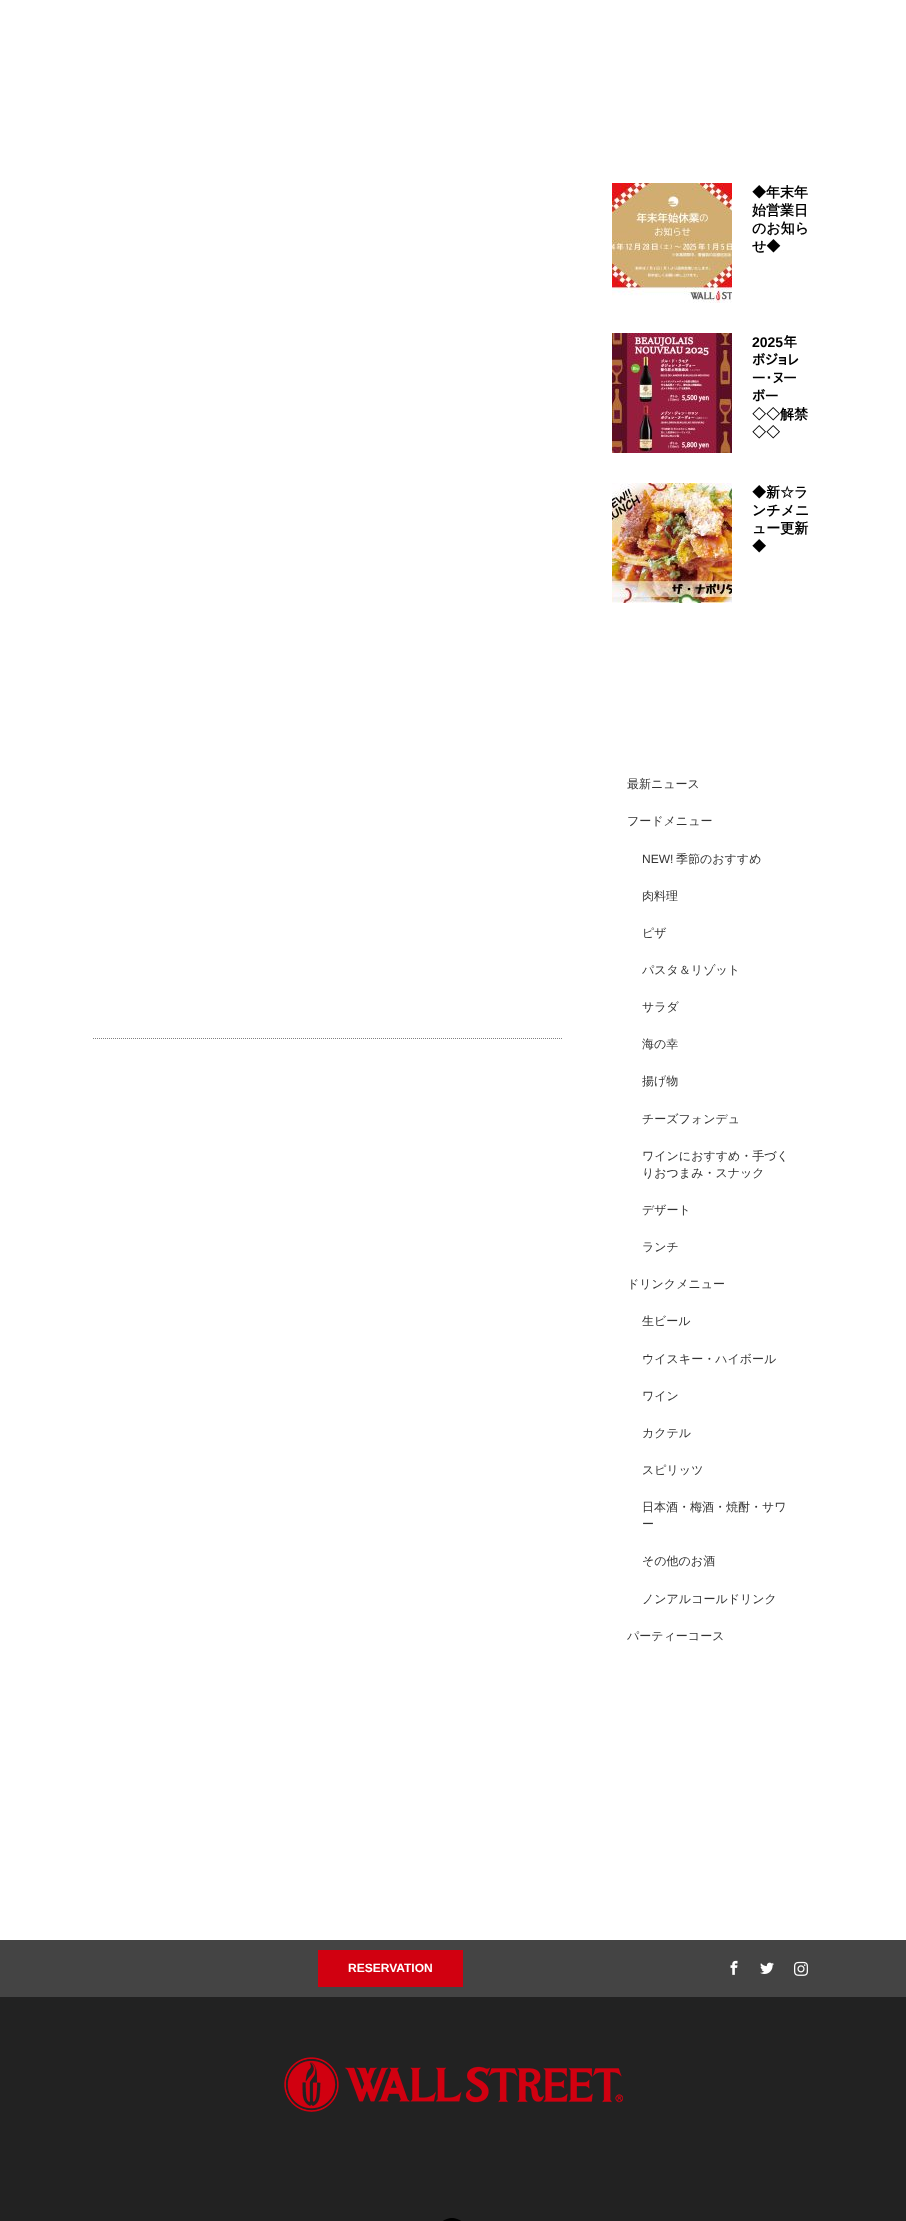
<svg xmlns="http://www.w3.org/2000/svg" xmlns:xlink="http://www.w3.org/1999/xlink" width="906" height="2221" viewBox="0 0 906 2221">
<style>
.cls-1{font:bold 14px WenQuanYi Zen Hei;fill:#000000}
.cls-2{font:bold 14px Liberation Sans;fill:#000000}
.cls-3{font:bold 14px IPAPGothic;fill:#000000}
.cls-4{font:500 12px WenQuanYi Zen Hei;fill:#333333}
.cls-5{font:12px Liberation Sans;fill:#333333}
.cls-6{font:bold 12px Liberation Sans;fill:#ffffff}
</style>
<rect width="100%" height="100%" fill="#ffffff"/>
<path fill="none" stroke="#808080" stroke-dasharray="1 1" d="M93 1038.5H563"/>
<image xlink:href="image0.png" x="612" y="183" width="120" height="120"/>
<image xlink:href="image1.png" x="612" y="333" width="120" height="120"/>
<image xlink:href="image2.png" x="612" y="483" width="120" height="120"/>
<rect fill="#444444" x="0" y="1940" width="906" height="57"/>
<rect fill="#d10010" x="318" y="1950" width="145" height="37"/>
<image xlink:href="image3.png" x="730" y="1960" width="8" height="15"/>
<image xlink:href="image4.png" x="760" y="1962" width="14" height="12"/>
<image xlink:href="image5.png" x="794" y="1961" width="14" height="15"/>
<rect fill="#222222" x="0" y="1997" width="906" height="224"/>
<image xlink:href="image6.png" x="284" y="2057" width="339" height="55"/>
<image xlink:href="image7.png" x="443" y="2218" width="18" height="3"/>
<text class="cls-1"><tspan x="752" y="197">◆年末年</tspan><tspan x="752" y="215">始営業日</tspan><tspan x="752" y="233">のお知ら</tspan><tspan x="752" y="251">せ◆</tspan></text>
<text class="cls-2" x="752" y="347">2025</text>
<text class="cls-3" x="783" y="347">年</text>
<text class="cls-3"><tspan x="752" y="365">ボジョレ</tspan><tspan x="752" y="383">ー･ヌー</tspan><tspan x="752" y="401">ボー</tspan></text>
<text class="cls-1"><tspan x="752" y="419">◇◇解禁</tspan><tspan x="752" y="437">◇◇</tspan></text>
<text class="cls-1"><tspan x="752" y="497">◆新☆ラ</tspan><tspan x="752" y="515">ンチメニ</tspan><tspan x="752" y="533">ュー更新</tspan><tspan x="752" y="551">◆</tspan></text>
<text class="cls-4" x="627" y="788">最新ニュース</text>
<text class="cls-4" x="627" y="825">フードメニュー</text>
<text class="cls-5" x="642" y="863">NEW!</text>
<text class="cls-4" x="676" y="863">季節のおすすめ</text>
<text class="cls-4" x="642" y="900">肉料理</text>
<text class="cls-4" x="642" y="937">ピザ</text>
<text class="cls-4" x="642" y="974">パスタ＆リゾット</text>
<text class="cls-4" x="642" y="1011">サラダ</text>
<text class="cls-4" x="642" y="1048">海の幸</text>
<text class="cls-4" x="642" y="1085">揚げ物</text>
<text class="cls-4" x="642" y="1123">チーズフォンデュ</text>
<text class="cls-4"><tspan x="642" y="1160">ワインにおすすめ・手づく</tspan><tspan x="642" y="1177">りおつまみ・スナック</tspan></text>
<text class="cls-4" x="642" y="1214">デザート</text>
<text class="cls-4" x="642" y="1251">ランチ</text>
<text class="cls-4" x="627" y="1288">ドリンクメニュー</text>
<text class="cls-4" x="642" y="1325">生ビール</text>
<text class="cls-4" x="642" y="1363">ウイスキー・ハイボール</text>
<text class="cls-4" x="642" y="1400">ワイン</text>
<text class="cls-4" x="642" y="1437">カクテル</text>
<text class="cls-4" x="642" y="1474">スピリッツ</text>
<text class="cls-4"><tspan x="642" y="1511">日本酒・梅酒・焼酎・サワ</tspan><tspan x="642" y="1528">ー</tspan></text>
<text class="cls-4" x="642" y="1565">その他のお酒</text>
<text class="cls-4" x="642" y="1603">ノンアルコールドリンク</text>
<text class="cls-4" x="627" y="1640">パーティーコース</text>
<text class="cls-6" x="348" y="1972">RESERVATION</text>
</svg>
